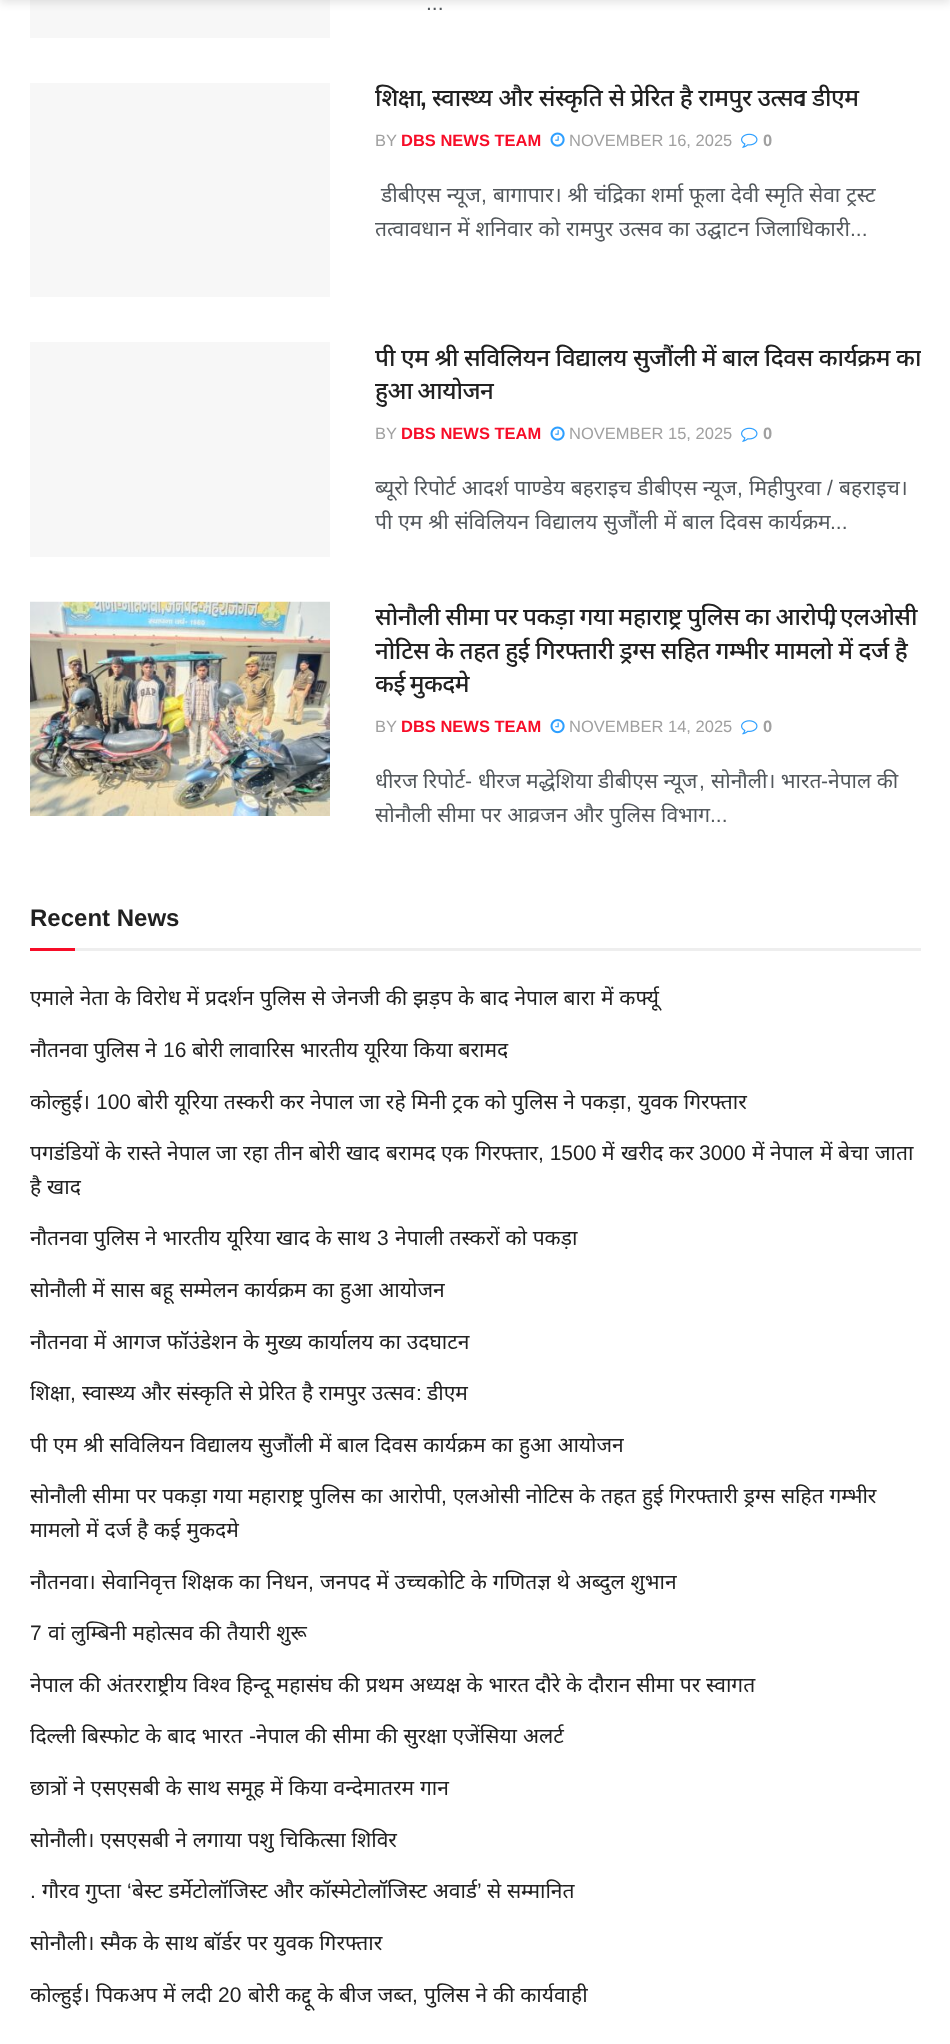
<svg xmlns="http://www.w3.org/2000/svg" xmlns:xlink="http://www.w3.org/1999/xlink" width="950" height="2044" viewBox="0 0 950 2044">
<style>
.cls-1{font:21px Liberation Sans;fill:#53585c}
.cls-2{font:500 24px Noto Sans;letter-spacing:-0.48px;fill:#212121}
.cls-3{font:bold 24px Liberation Sans;letter-spacing:-0.48px;fill:#212121}
.cls-4{font:16.5px Liberation Sans;fill:#a0a0a0}
.cls-5{font:bold 16.5px Liberation Sans;fill:#f70d28}
.cls-6{font:bold 16.5px Liberation Sans;fill:#a0a0a0}
.cls-7{font:21px Noto Sans;fill:#53585c}
.cls-8{font:bold 24px Liberation Sans;fill:#212121}
.cls-9{font:21px Noto Sans;fill:#212121}
.cls-10{font:21px Liberation Sans;fill:#212121}
</style>
<defs>
<clipPath id="clip1"><rect x="375" y="342" width="546" height="197"/></clipPath>
<clipPath id="clip2"><rect x="375" y="602" width="546" height="229"/></clipPath>
</defs>
<rect width="100%" height="100%" fill="#ffffff"/>
<rect fill="#f7f7f7" x="30" y="0" width="300" height="38"/>
<rect fill="#000000" fill-opacity="0.1" filter="blur(4.5px)" x="0" y="-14" width="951" height="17"/>
<rect fill="#f7f7f7" x="30" y="83" width="300" height="214"/>
<image xlink:href="image0.png" x="550" y="132" width="15" height="15"/>
<image xlink:href="image1.png" x="741" y="133" width="17" height="15"/>
<rect fill="#f7f7f7" x="30" y="342" width="300" height="215"/>
<image xlink:href="image0.png" x="550" y="426" width="15" height="15"/>
<image xlink:href="image1.png" x="741" y="427" width="17" height="15"/>
<image xlink:href="image2.png" x="30" y="601" width="300" height="215"/>
<image xlink:href="image3.png" x="550" y="719" width="15" height="15"/>
<image xlink:href="image4.png" x="741" y="720" width="17" height="15"/>
<rect fill="#eeeeee" x="75" y="948" width="846" height="3"/>
<rect fill="#f70d28" x="30" y="948" width="45" height="3"/>
<text class="cls-1" x="426" y="10">...</text>
<text class="cls-2" x="375" y="106">शिक्षा</text>
<text class="cls-3" x="420" y="106">,</text>
<text class="cls-2" x="432" y="106" word-spacing="0.25">स्वास्थ्य और संस्कृति से प्रेरित है रामपुर उत्सव</text>
<text class="cls-3" x="798" y="106">:</text>
<text class="cls-2" x="812" y="106">डीएम</text>
<text class="cls-4" x="375" y="146">BY</text>
<text class="cls-5" x="401" y="146">DBS NEWS TEAM</text>
<text class="cls-4" x="569" y="146">NOVEMBER 16, 2025</text>
<text class="cls-6" x="763" y="146">0</text>
<text class="cls-7" x="381" y="202" word-spacing="0.4">डीबीएस न्यूज</text>
<text class="cls-1" x="481" y="202">,</text>
<text class="cls-7" x="493" y="202" word-spacing="0.4">बागापार। श्री चंद्रिका शर्मा फूला देवी स्मृति सेवा ट्रस्ट</text>
<text class="cls-7" x="375" y="236" word-spacing="0.4">तत्वावधान में शनिवार को रामपुर उत्सव का उद्घाटन जिलाधिकारी</text>
<text class="cls-1" x="850" y="236">...</text>
<g clip-path="url(#clip1)">
<text class="cls-2" x="375" y="366" word-spacing="0.25">पी एम श्री सविलियन विद्यालय सुजौंली में बाल दिवस कार्यक्रम का</text>
</g>
<text class="cls-2" x="375" y="399" word-spacing="-1">हुआ आयोजन</text>
<text class="cls-4" x="375" y="439">BY</text>
<text class="cls-5" x="401" y="439">DBS NEWS TEAM</text>
<text class="cls-4" x="569" y="439">NOVEMBER 15, 2025</text>
<text class="cls-6" x="763" y="439">0</text>
<text class="cls-7" x="375" y="495" word-spacing="0.25">ब्यूरो रिपोर्ट आदर्श पाण्डेय बहराइच डीबीएस न्यूज</text>
<text class="cls-1" x="737" y="495">,</text>
<text class="cls-7" x="749" y="495">मिहीपुरवा</text>
<text class="cls-1" x="827" y="495">/</text>
<text class="cls-7" x="839" y="495">बहराइच।</text>
<g clip-path="url(#clip1)">
<text class="cls-7" x="375" y="529" word-spacing="0.4">पी एम श्री संविलियन विद्यालय सुजौंली में बाल दिवस कार्यक्रम</text>
</g>
<text class="cls-1" x="830" y="529">...</text>
<g clip-path="url(#clip2)">
<text class="cls-2" x="375" y="625" word-spacing="-0.25">सोनौली सीमा पर पकड़ा गया महाराष्ट्र पुलिस का आरोपी</text>
</g>
<text class="cls-3" x="828" y="625">,</text>
<text class="cls-2" x="840" y="625">एलओसी</text>
<g clip-path="url(#clip2)">
<text class="cls-2" x="375" y="659" word-spacing="0.25">नोटिस के तहत हुई गिरफ्तारी ड्रग्स सहित गम्भीर मामलो में दर्ज है</text>
</g>
<text class="cls-2" x="375" y="692" word-spacing="-1">कई मुकदमे</text>
<text class="cls-4" x="375" y="732">BY</text>
<text class="cls-5" x="401" y="732">DBS NEWS TEAM</text>
<text class="cls-4" x="569" y="732">NOVEMBER 14, 2025</text>
<text class="cls-6" x="763" y="732">0</text>
<g clip-path="url(#clip2)">
<text class="cls-7" x="375" y="788">धीरज रिपोर्ट</text>
</g>
<text class="cls-1" x="465" y="788">-</text>
<text class="cls-7" x="478" y="788">धीरज मद्धेशिया डीबीएस न्यूज</text>
<text class="cls-7" x="711" y="788">सोनौली। भारत</text>
<text class="cls-1" x="821" y="788">-</text>
<text class="cls-7" x="828" y="788">नेपाल की</text>
<text class="cls-1" x="699" y="788">,</text>
<g clip-path="url(#clip2)">
<text class="cls-7" x="375" y="822" word-spacing="0.4">सोनौली सीमा पर आव्रजन और पुलिस विभाग</text>
</g>
<text class="cls-1" x="710" y="822">...</text>
<text class="cls-8" x="30" y="926">Recent News</text>
<text class="cls-9" x="30" y="1005" word-spacing="0.4">एमाले नेता के विरोध में प्रदर्शन पुलिस से जेनजी की झड़प के बाद नेपाल बारा में कर्फ्यू</text>
<text class="cls-9" x="30" y="1057" word-spacing="0.25">नौतनवा पुलिस ने</text>
<text class="cls-10" x="163" y="1057">16</text>
<text class="cls-9" x="192" y="1057" word-spacing="0.25">बोरी लावारिस भारतीय यूरिया किया बरामद</text>
<text class="cls-9" x="30" y="1109">कोल्हुई।</text>
<text class="cls-10" x="96" y="1109">100</text>
<text class="cls-9" x="137" y="1109" word-spacing="0.25">बोरी यूरिया तस्करी कर नेपाल जा रहे मिनी ट्रक को पुलिस ने पकड़ा</text>
<text class="cls-10" x="626" y="1109">,</text>
<text class="cls-9" x="638" y="1109" word-spacing="0.25">युवक गिरफ्तार</text>
<text class="cls-9" x="30" y="1160">पगडंडियों</text>
<text class="cls-9" x="105" y="1160">के</text>
<text class="cls-9" x="127" y="1160">रास्ते</text>
<text class="cls-9" x="167" y="1160">नेपाल</text>
<text class="cls-9" x="216" y="1160">जा</text>
<text class="cls-9" x="243" y="1160">रहा</text>
<text class="cls-9" x="274" y="1160">तीन</text>
<text class="cls-9" x="309" y="1160">बोरी</text>
<text class="cls-9" x="346" y="1160">खाद</text>
<text class="cls-9" x="386" y="1160">बरामद</text>
<text class="cls-9" x="441" y="1160">एक</text>
<text class="cls-9" x="475" y="1160">गिरफ्तार</text>
<text class="cls-10" x="538" y="1160">, 1500</text>
<text class="cls-9" x="602" y="1160">में</text>
<text class="cls-9" x="621" y="1160">खरीद</text>
<text class="cls-9" x="669" y="1160">कर</text>
<text class="cls-10" x="699" y="1160">3000</text>
<text class="cls-9" x="752" y="1160">में</text>
<text class="cls-9" x="770" y="1160">नेपाल</text>
<text class="cls-9" x="820" y="1160">में</text>
<text class="cls-9" x="838" y="1160">बेचा</text>
<text class="cls-9" x="875" y="1160">जाता</text>
<text class="cls-9" x="30" y="1194" word-spacing="0.4">है खाद</text>
<text class="cls-9" x="30" y="1245" word-spacing="0.25">नौतनवा पुलिस ने भारतीय यूरिया खाद के साथ</text>
<text class="cls-10" x="377" y="1245">3</text>
<text class="cls-9" x="395" y="1245" word-spacing="0.25">नेपाली तस्करों को पकड़ा</text>
<text class="cls-9" x="30" y="1297" word-spacing="0.4">सोनौली में सास बहू सम्मेलन कार्यक्रम का हुआ आयोजन</text>
<text class="cls-9" x="30" y="1349" word-spacing="0.4">नौतनवा में आगज फॉउंडेशन के मुख्य कार्यालय का उदघाटन</text>
<text class="cls-9" x="30" y="1400">शिक्षा</text>
<text class="cls-10" x="70" y="1400">,</text>
<text class="cls-9" x="82" y="1400" word-spacing="0.25">स्वास्थ्य और संस्कृति से प्रेरित है रामपुर उत्सव</text>
<text class="cls-10" x="416" y="1400">:</text>
<text class="cls-9" x="427" y="1400">डीएम</text>
<text class="cls-9" x="30" y="1452" word-spacing="0.4">पी एम श्री सविलियन विद्यालय सुजौंली में बाल दिवस कार्यक्रम का हुआ आयोजन</text>
<text class="cls-9" x="30" y="1503" word-spacing="0.4">सोनौली सीमा पर पकड़ा गया महाराष्ट्र पुलिस का आरोपी</text>
<text class="cls-10" x="441" y="1503">,</text>
<text class="cls-9" x="453" y="1503" word-spacing="0.4">एलओसी नोटिस के तहत हुई गिरफ्तारी ड्रग्स सहित गम्भीर</text>
<text class="cls-9" x="30" y="1537" word-spacing="0.4">मामलो में दर्ज है कई मुकदमे</text>
<text class="cls-9" x="30" y="1589" word-spacing="0.4">नौतनवा। सेवानिवृत्त शिक्षक का निधन</text>
<text class="cls-10" x="308" y="1589">,</text>
<text class="cls-9" x="320" y="1589" word-spacing="0.4">जनपद में उच्चकोटि के गणितज्ञ थे अब्दुल शुभान</text>
<text class="cls-10" x="30" y="1640">7</text>
<text class="cls-9" x="48" y="1640" word-spacing="0.4">वां लुम्बिनी महोत्सव की तैयारी शुरू</text>
<text class="cls-9" x="30" y="1692" word-spacing="0.4">नेपाल की अंतरराष्ट्रीय विश्व हिन्दू महासंघ की प्रथम अध्यक्ष के भारत दौरे के दौरान सीमा पर स्वागत</text>
<text class="cls-9" x="30" y="1743" word-spacing="0.4">दिल्ली बिस्फोट के बाद भारत</text>
<text class="cls-10" x="249" y="1743">-</text>
<text class="cls-9" x="256" y="1743" word-spacing="0.4">नेपाल की सीमा की सुरक्षा एजेंसिया अलर्ट</text>
<text class="cls-9" x="30" y="1795" word-spacing="0.4">छात्रों ने एसएसबी के साथ समूह में किया वन्देमातरम गान</text>
<text class="cls-9" x="30" y="1847" word-spacing="0.4">सोनौली। एसएसबी ने लगाया पशु चिकित्सा शिविर</text>
<text class="cls-9" x="42" y="1898" word-spacing="0.25">गौरव गुप्ता</text>
<text class="cls-10" x="127" y="1898">‘</text>
<text class="cls-9" x="132" y="1898" word-spacing="0.25">बेस्ट डर्मेटोलॉजिस्ट और कॉस्मेटोलॉजिस्ट अवार्ड</text>
<text class="cls-10" x="477" y="1898">’</text>
<text class="cls-9" x="487" y="1898" word-spacing="0.25">से सम्मानित</text>
<text class="cls-10" x="30" y="1898">.</text>
<text class="cls-9" x="30" y="1950" word-spacing="0.4">सोनौली। स्मैक के साथ बॉर्डर पर युवक गिरफ्तार</text>
<text class="cls-9" x="30" y="2002" word-spacing="0.25">कोल्हुई। पिकअप में लदी</text>
<text class="cls-10" x="218" y="2002">20</text>
<text class="cls-9" x="248" y="2002" word-spacing="0.25">बोरी कद्दू के बीज जब्त</text>
<text class="cls-10" x="412" y="2002">,</text>
<text class="cls-9" x="424" y="2002" word-spacing="0.25">पुलिस ने की कार्यवाही</text>
</svg>
